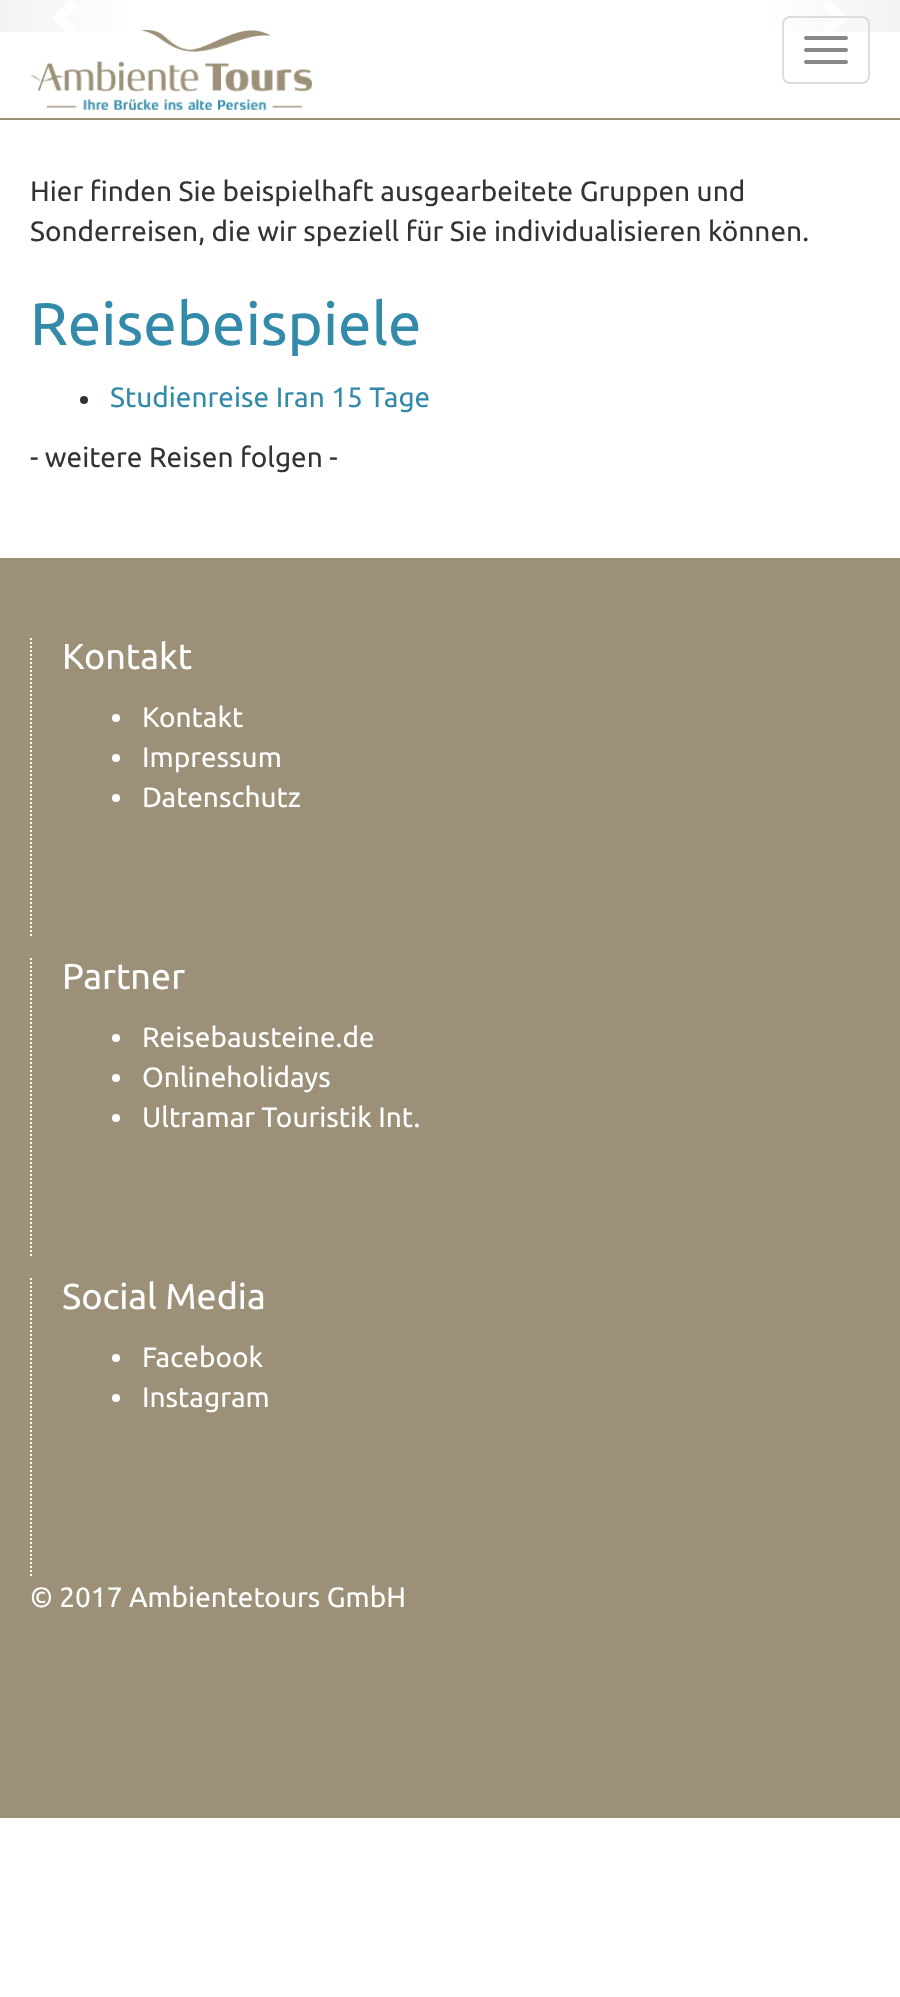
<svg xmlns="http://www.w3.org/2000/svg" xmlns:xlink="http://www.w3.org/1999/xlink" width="900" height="1997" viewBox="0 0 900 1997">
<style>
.cls-1{font:28px Ubuntu;fill:#333333}
.cls-2{font:60px Ubuntu;fill:#348ba9}
.cls-3{font:28px Ubuntu;fill:#348ba9}
.cls-4{font:36px Ubuntu;fill:#ffffff}
.cls-5{font:28px Ubuntu;fill:#ffffff}
</style>
<defs>
<linearGradient id="g1" gradientUnits="userSpaceOnUse" x1="0" y1="16" x2="136" y2="16"><stop offset="0" stop-color="#c0c0c0"/><stop offset="1" stop-color="#ffffff"/></linearGradient>
<linearGradient id="g2" gradientUnits="userSpaceOnUse" x1="766" y1="16" x2="900" y2="16"><stop offset="0" stop-color="#ffffff"/><stop offset="1" stop-color="#c0c0c0"/></linearGradient>
</defs>
<rect width="100%" height="100%" fill="#ffffff"/>
<rect fill="url(#g1)" x="0" y="0" width="131" height="32"/>
<path fill="#ffffff" d="M77.5 6L66 18L77.5 29.5L71 36L52.5 17.5L71-.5Z"/>
<rect fill="url(#g2)" x="771" y="0" width="129" height="32"/>
<path fill="#ffffff" d="M847.5 18L829 36L822.5 29.5L834.5 18L822.5 6L829-.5Z"/>
<rect fill="#ffffff" fill-opacity="0.8" x="0" y="0" width="900" height="32"/>
<rect fill="#9c9178" x="0" y="118" width="900" height="2"/>
<image xlink:href="image0.png" x="30" y="30" width="282" height="80"/>
<rect fill="none" stroke="#dddddd" stroke-width="2" x="783" y="17" width="86" height="66" rx="7"/>
<rect fill="#888888" x="804" y="36" width="44" height="4" rx="2"/>
<rect fill="#888888" x="804" y="48" width="44" height="4" rx="2"/>
<rect fill="#888888" x="804" y="60" width="44" height="4" rx="2"/>
<circle fill="#333333" cx="84" cy="400" r="4"/>
<rect fill="#9c9178" x="0" y="558" width="900" height="1260"/>
<path fill="none" stroke="#ffffff" stroke-width="2" stroke-dasharray="2 2" d="M31 638V938"/>
<circle fill="#ffffff" cx="116" cy="718" r="4"/>
<circle fill="#ffffff" cx="116" cy="758" r="4"/>
<circle fill="#ffffff" cx="116" cy="798" r="4"/>
<path fill="none" stroke="#ffffff" stroke-width="2" stroke-dasharray="2 2" d="M31 958V1258"/>
<circle fill="#ffffff" cx="116" cy="1038" r="4"/>
<circle fill="#ffffff" cx="116" cy="1078" r="4"/>
<circle fill="#ffffff" cx="116" cy="1118" r="4"/>
<path fill="none" stroke="#ffffff" stroke-width="2" stroke-dasharray="2 2" d="M31 1278V1578"/>
<circle fill="#ffffff" cx="116" cy="1358" r="4"/>
<circle fill="#ffffff" cx="116" cy="1398" r="4"/>
<text class="cls-1"><tspan x="30" y="201">Hier finden Sie beispielhaft ausgearbeitete Gruppen und</tspan><tspan x="30" y="241">Sonderreisen, die wir speziell für Sie individualisieren können.</tspan></text>
<text class="cls-2" x="30" y="345">Reisebeispiele</text>
<text class="cls-3" x="110" y="407">Studienreise Iran 15 Tage</text>
<text class="cls-1" x="30" y="467">- weitere Reisen folgen -</text>
<text class="cls-4" x="62" y="669">Kontakt</text>
<text class="cls-5"><tspan x="142" y="727">Kontakt</tspan><tspan x="142" y="767">Impressum</tspan><tspan x="142" y="807">Datenschutz</tspan></text>
<text class="cls-4" x="62" y="989">Partner</text>
<text class="cls-5"><tspan x="142" y="1047">Reisebausteine.de</tspan><tspan x="142" y="1087">Onlineholidays</tspan><tspan x="142" y="1127">Ultramar Touristik Int.</tspan></text>
<text class="cls-4" x="62" y="1309">Social Media</text>
<text class="cls-5"><tspan x="142" y="1367">Facebook</tspan><tspan x="142" y="1407">Instagram</tspan></text>
<text class="cls-5" x="30" y="1607">© 2017 Ambientetours GmbH</text>
</svg>
